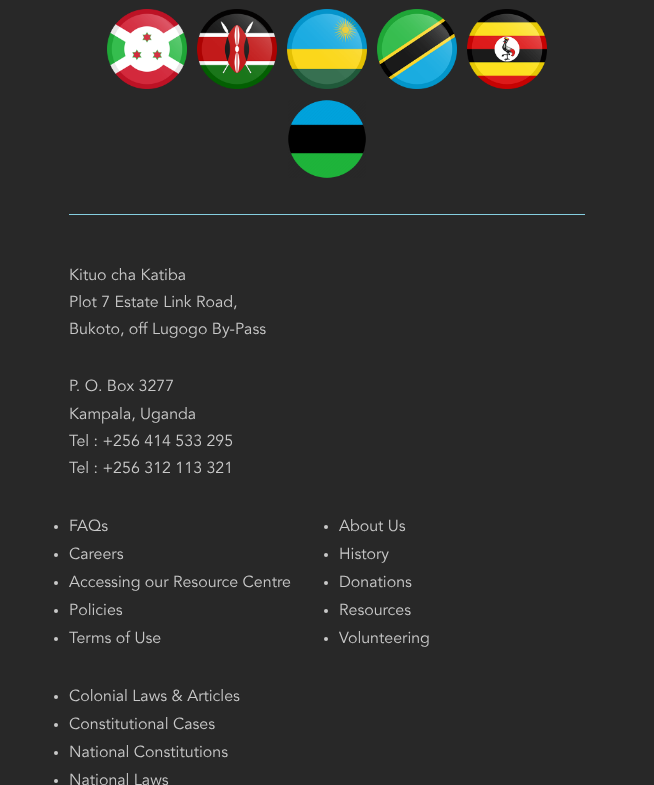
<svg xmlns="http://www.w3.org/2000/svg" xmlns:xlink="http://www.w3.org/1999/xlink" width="654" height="785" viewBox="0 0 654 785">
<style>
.cls-1{font:16px Avenir;fill:#c9c9c9}
</style>
<rect width="100%" height="100%" fill="#282828"/>
<rect fill="#85cee0" x="69" y="214" width="516" height="1"/>
<image xlink:href="image0.png" x="107" y="9" width="80" height="80"/>
<image xlink:href="image1.png" x="197" y="9" width="80" height="80"/>
<image xlink:href="image2.png" x="287" y="9" width="80" height="80"/>
<image xlink:href="image3.png" x="377" y="9" width="80" height="80"/>
<image xlink:href="image4.png" x="467" y="9" width="80" height="80"/>
<image xlink:href="image5.png" x="288" y="100" width="78" height="78"/>
<circle fill="#c9c9c9" cx="56" cy="527" r="2"/>
<circle fill="#c9c9c9" cx="56" cy="555" r="2"/>
<circle fill="#c9c9c9" cx="56" cy="583" r="2"/>
<circle fill="#c9c9c9" cx="56" cy="611" r="2"/>
<circle fill="#c9c9c9" cx="56" cy="639" r="2"/>
<circle fill="#c9c9c9" cx="326" cy="527" r="2"/>
<circle fill="#c9c9c9" cx="326" cy="555" r="2"/>
<circle fill="#c9c9c9" cx="326" cy="583" r="2"/>
<circle fill="#c9c9c9" cx="326" cy="611" r="2"/>
<circle fill="#c9c9c9" cx="326" cy="639" r="2"/>
<circle fill="#c9c9c9" cx="56" cy="697" r="2"/>
<circle fill="#c9c9c9" cx="56" cy="725" r="2"/>
<circle fill="#c9c9c9" cx="56" cy="753" r="2"/>
<circle fill="#c9c9c9" cx="56" cy="781" r="2"/>
<text class="cls-1"><tspan x="69" y="280">Kituo cha Katiba</tspan><tspan x="69" y="307">Plot 7 Estate Link Road,</tspan><tspan x="69" y="334">Bukoto, off Lugogo By-Pass</tspan></text>
<text class="cls-1"><tspan x="69" y="391">P. O. Box 3277</tspan><tspan x="69" y="419">Kampala, Uganda</tspan><tspan x="69" y="446">Tel : +256 414 533 295</tspan><tspan x="69" y="473">Tel : +256 312 113 321</tspan></text>
<text class="cls-1"><tspan x="69" y="531">FAQs</tspan><tspan x="69" y="559">Careers</tspan><tspan x="69" y="587">Accessing our Resource Centre</tspan><tspan x="69" y="615">Policies</tspan><tspan x="69" y="643">Terms of Use</tspan></text>
<text class="cls-1"><tspan x="339" y="531">About Us</tspan><tspan x="339" y="559">History</tspan><tspan x="339" y="587">Donations</tspan><tspan x="339" y="615">Resources</tspan><tspan x="339" y="643">Volunteering</tspan></text>
<text class="cls-1"><tspan x="69" y="701">Colonial Laws &amp; Articles</tspan><tspan x="69" y="729">Constitutional Cases</tspan><tspan x="69" y="757">National Constitutions</tspan><tspan x="69" y="785">National Laws</tspan></text>
</svg>
